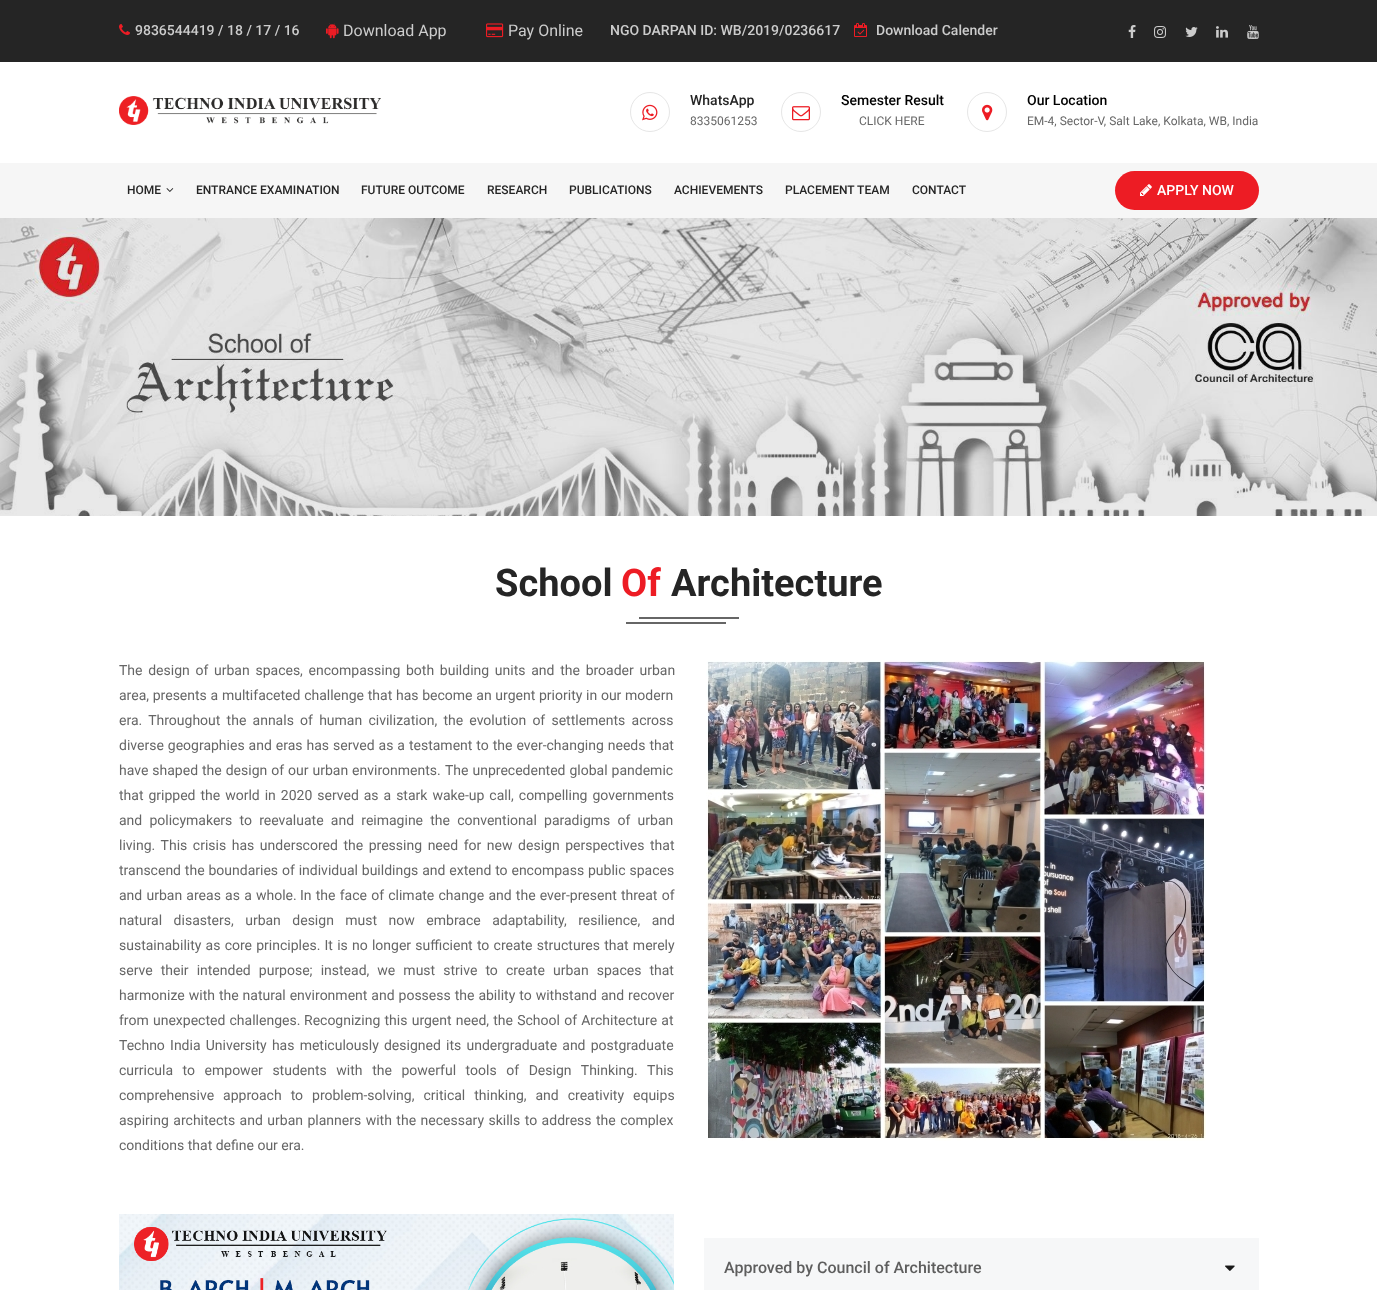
(async () => {
  const canvas = document.querySelector("canvas");
  canvas.width = 1377;
  canvas.height = 1290;
  const ctx = canvas.getContext("2d");
  ctx.miterLimit = 4;
  ctx.fontKerning = "normal";
  async function loadImage(src) {
    const img = new Image();
    img.src = src;
    await img.decode();
    return img;
  }

  ctx.fillStyle = "#ffffff";
  ctx.fillRect(0, 0, 1377, 1290);
  ctx.fillStyle = "#252525";
  ctx.fillRect(0, 0, 1377, 62);
  ctx.drawImage(await loadImage("img/1.png"), 119, 24, 11, 11);
  ctx.drawImage(await loadImage("img/2.png"), 326, 23, 13, 16);
  ctx.drawImage(await loadImage("img/3.png"), 486, 23, 18, 15);
  ctx.drawImage(await loadImage("img/4.png"), 854, 23, 13, 14);
  ctx.drawImage(await loadImage("img/5.png"), 1128, 25, 8, 13);
  ctx.drawImage(await loadImage("img/6.png"), 1154, 26, 12, 12);
  ctx.drawImage(await loadImage("img/7.png"), 1185, 27, 13, 10);
  ctx.drawImage(await loadImage("img/8.png"), 1216, 26, 12, 12);
  ctx.drawImage(await loadImage("img/9.png"), 1247, 25, 12, 14);
  ctx.drawImage(await loadImage("img/10.png"), 119, 96, 262, 29);
  ctx.beginPath();
  ctx.arc(650, 112, 19.5, 0, Math.PI * 2);
  ctx.strokeStyle = "#e6e6e6";
  ctx.stroke();
  ctx.drawImage(await loadImage("img/11.png"), 642, 104, 16, 17);
  ctx.beginPath();
  ctx.arc(801, 112, 19.5, 0, Math.PI * 2);
  ctx.stroke();
  ctx.drawImage(await loadImage("img/12.png"), 792, 106, 18, 15);
  ctx.beginPath();
  ctx.arc(987, 112, 19.5, 0, Math.PI * 2);
  ctx.stroke();
  ctx.drawImage(await loadImage("img/13.png"), 982, 104, 11, 17);
  ctx.fillStyle = "#f6f6f6";
  ctx.fillRect(0, 163, 1377, 55);
  ctx.drawImage(await loadImage("img/14.png"), 166, 188, 8, 4);
  ctx.fillStyle = "#ed1c24";
  ctx.beginPath();
  ctx.roundRect(1115, 171, 144, 39, 19.5);
  ctx.fill();
  ctx.drawImage(await loadImage("img/15.png"), 1140, 184, 12, 12);
  ctx.drawImage(await loadImage("img/16.png"), 0, 218, 1377, 298);
  ctx.fillStyle = "#666666";
  ctx.fillRect(639, 617, 100, 2);
  ctx.fillRect(626, 622, 100, 2);
  ctx.drawImage(await loadImage("img/17.png"), 706, 660, 500, 481);
  ctx.drawImage(await loadImage("img/18.png"), 119, 1214, 555, 76);
  ctx.fillStyle = "#f6f7f8";
  ctx.fillRect(704, 1238, 555, 52);
  ctx.drawImage(await loadImage("img/19.png"), 1225, 1265, 10, 6);
  ctx.font = "500 14px Roboto";
  ctx.fillStyle = "#cccccc";
  ctx.fillText("9836544419 / 18 / 17 / 16", 135, 35);
  ctx.font = "16px Roboto";
  ctx.fillText("Download App", 343, 36);
  ctx.fillText("Pay Online", 508, 36);
  ctx.font = "500 14px Roboto";
  ctx.fillText("NGO DARPAN ID: WB/2019/0236617", 610, 35);
  ctx.fillText("Download Calender", 876, 35);
  ctx.fillStyle = "#252525";
  ctx.fillText("WhatsApp", 690, 105);
  ctx.font = "12px Roboto";
  ctx.fillStyle = "#666666";
  ctx.fillText("8335061253", 690, 125);
  ctx.font = "500 14px Roboto";
  ctx.fillStyle = "#000000";
  ctx.fillText("Semester Result", 841, 105);
  ctx.font = "12px Roboto";
  ctx.fillStyle = "#666666";
  ctx.fillText("CLICK HERE", 859, 125);
  ctx.font = "500 14px Roboto";
  ctx.fillStyle = "#000000";
  ctx.fillText("Our Location", 1027, 105);
  ctx.font = "12px Roboto";
  ctx.fillStyle = "#666666";
  ctx.fillText("EM-4, Sector-V, Salt Lake, Kolkata, WB, India", 1027, 125);
  ctx.font = "500 12px Roboto";
  ctx.fillStyle = "#252525";
  for (const [text, x, y] of [
    ["HOME", 127, 194],
    ["ENTRANCE EXAMINATION", 196, 194],
    ["FUTURE OUTCOME", 361, 194],
    ["RESEARCH", 487, 194],
    ["PUBLICATIONS", 569, 194],
    ["ACHIEVEMENTS", 674, 194],
    ["PLACEMENT TEAM", 785, 194],
    ["CONTACT", 912, 194],
  ]) {
    ctx.fillText(text, x, y);
  }
  ctx.font = "500 14px Roboto";
  ctx.fillStyle = "#ffffff";
  ctx.fillText("APPLY NOW", 1157, 195);
  ctx.font = "bold 38px Roboto";
  ctx.fillStyle = "#252525";
  ctx.fillText("School", 495, 596);
  ctx.fillStyle = "#ed1c24";
  ctx.fillText("Of", 621, 596);
  ctx.fillStyle = "#252525";
  ctx.fillText("Architecture", 671, 596);
  ctx.wordSpacing = "2.25px";
  ctx.font = "14px Roboto";
  ctx.fillStyle = "#666666";
  ctx.fillText("The design of urban spaces, encompassing both building units and the broader urban", 119, 675);
  ctx.wordSpacing = "0.25px";
  ctx.fillText("area, presents a multifaceted challenge that has become an urgent priority in our modern", 119, 700);
  ctx.wordSpacing = "2.75px";
  ctx.fillText("era. Throughout the annals of human civilization, the evolution of settlements across", 119, 725);
  ctx.wordSpacing = "0.5px";
  for (const [text, x, y] of [
    ["diverse geographies and eras has served as a testament to the ever-changing needs that", 119, 750],
    ["have shaped the design of our urban environments.", 119, 775],
    ["The unprecedented global pandemic", 445, 775],
  ]) {
    ctx.fillText(text, x, y);
  }
  ctx.wordSpacing = "1.5px";
  ctx.fillText("that gripped the world in 2020 served as a stark wake-up call, compelling governments", 119, 800);
  ctx.wordSpacing = "3.75px";
  ctx.fillText("and policymakers to reevaluate and reimagine the conventional paradigms of urban", 119, 825);
  ctx.wordSpacing = "2.1px";
  ctx.fillText("living. This crisis has underscored the pressing need for new design perspectives that", 119, 850);
  ctx.wordSpacing = "0.4px";
  ctx.fillText("transcend the boundaries of individual buildings and extend to encompass public spaces", 119, 875);
  ctx.wordSpacing = "0.75px";
  ctx.fillText("and urban areas as a whole.", 119, 900);
  ctx.fillText("In the face of climate change and the ever-present threat of", 300, 900);
  ctx.wordSpacing = "8px";
  ctx.fillText("natural disasters, urban design must now embrace adaptability, resilience, and", 119, 925);
  ctx.wordSpacing = "0.75px";
  ctx.fillText("sustainability as core principles. It is no longer sufficient to create structures that merely", 119, 950);
  ctx.wordSpacing = "4.6px";
  ctx.fillText("serve their intended purpose; instead, we must strive to create urban spaces that", 119, 975);
  ctx.wordSpacing = "0.5px";
  ctx.fillText("harmonize with the natural environment and possess the ability to withstand and recover", 119, 1000);
  ctx.wordSpacing = "0.75px";
  ctx.fillText("from unexpected challenges.", 119, 1025);
  ctx.fillText("Recognizing this urgent need, the School of Architecture at", 304, 1025);
  ctx.wordSpacing = "1.75px";
  ctx.fillText("Techno India University has meticulously designed its undergraduate and postgraduate", 119, 1050);
  ctx.wordSpacing = "6.1px";
  ctx.fillText("curricula to empower students with the powerful tools of Design Thinking. This", 119, 1075);
  ctx.wordSpacing = "5.5px";
  ctx.fillText("comprehensive approach to problem-solving, critical thinking, and creativity equips", 119, 1100);
  ctx.wordSpacing = "1px";
  ctx.fillText("aspiring architects and urban planners with the necessary skills to address the complex", 119, 1125);
  ctx.wordSpacing = "0px";
  ctx.fillText("conditions that define our era.", 119, 1150);
  ctx.font = "500 16px Roboto";
  ctx.fillStyle = "#5e5e5e";
  ctx.fillText("Approved by Council of Architecture", 724, 1273);
})();
